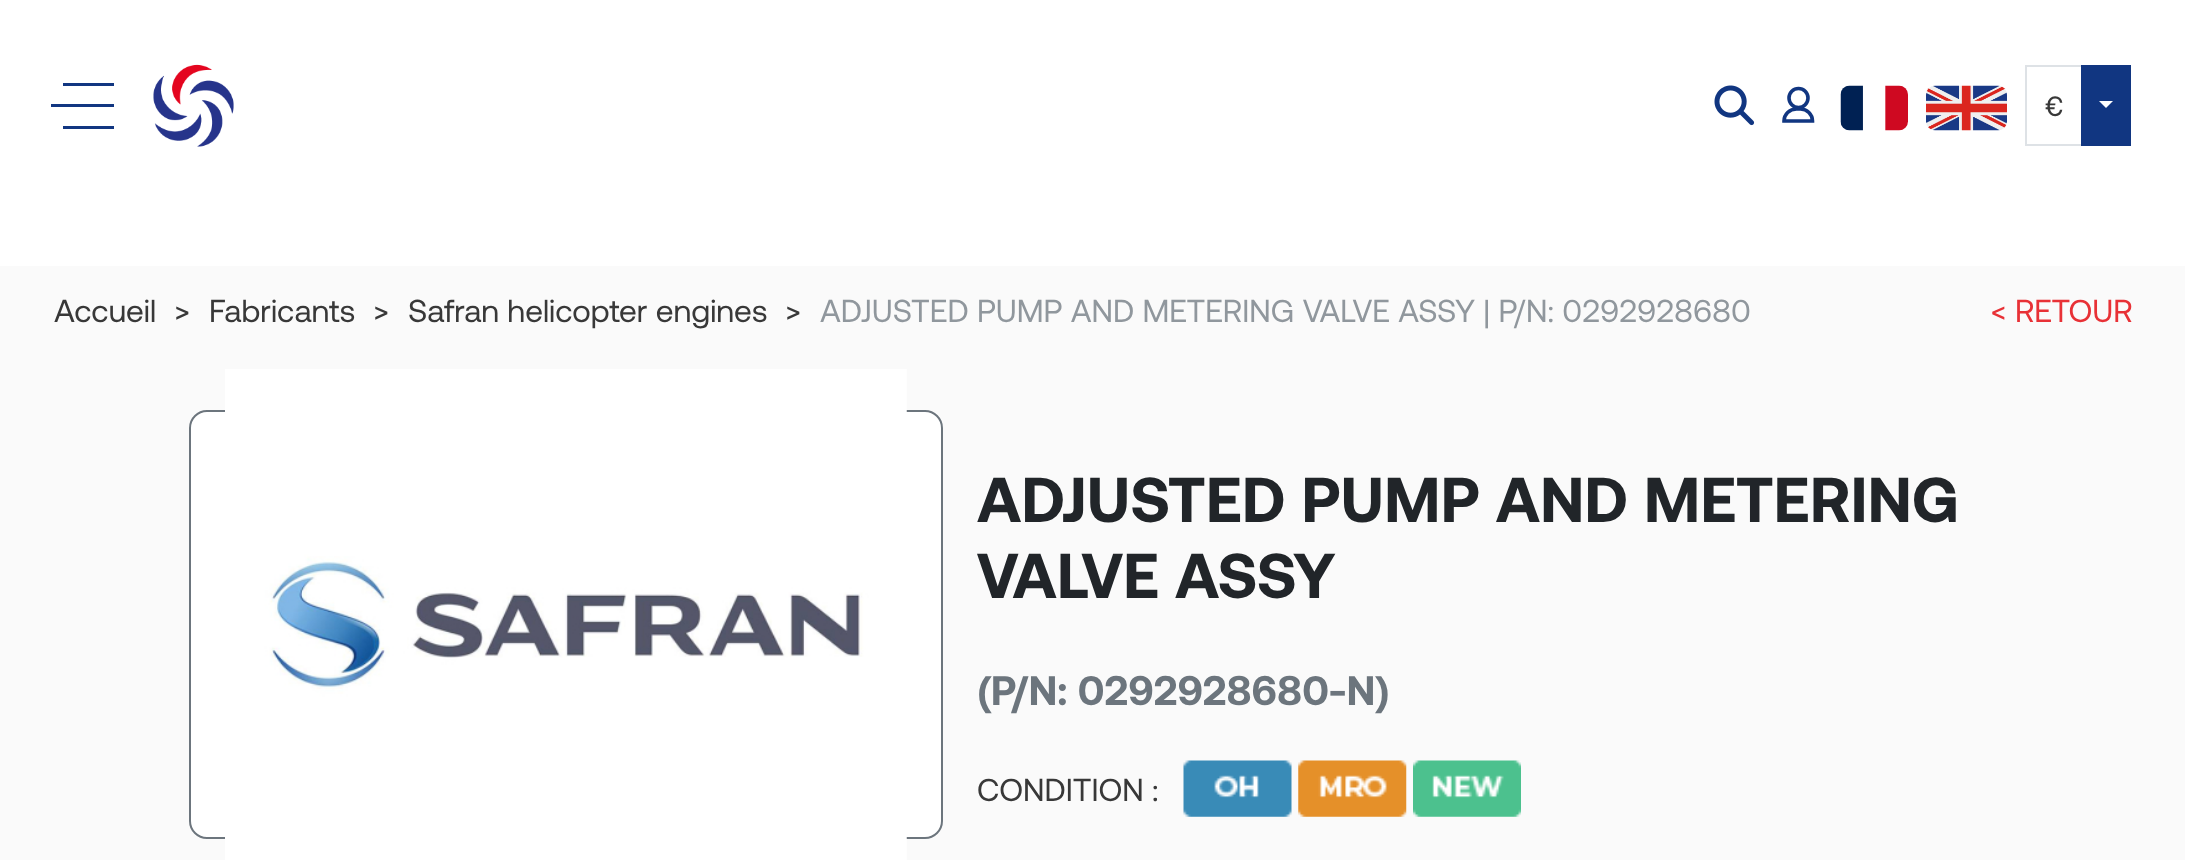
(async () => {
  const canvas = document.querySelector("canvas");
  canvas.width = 2185;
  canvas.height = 860;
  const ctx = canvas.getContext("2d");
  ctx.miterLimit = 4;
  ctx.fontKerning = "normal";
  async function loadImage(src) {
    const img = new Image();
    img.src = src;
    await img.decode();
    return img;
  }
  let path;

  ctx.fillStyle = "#ffffff";
  ctx.fillRect(0, 0, 2185, 860);
  ctx.fillStyle = "#113681";
  path = new Path2D("M63 83V86H114V83ZM51 104V107H114V104ZM63 126V129H114V126Z");
  ctx.fill(path);
  ctx.drawImage(await loadImage("img/1.png"), 153, 64, 81, 83);
  ctx.drawImage(await loadImage("img/2.png"), 1714, 85, 41, 41);
  ctx.beginPath();
  ctx.arc(1798.5, 98, 9.5, 0, Math.PI * 2);
  ctx.strokeStyle = "#113681";
  ctx.lineWidth = 3.6;
  ctx.stroke();
  path = new Path2D("M1812.5 121H1784C1784 114.5 1789.5 109 1796.5 109H1800.5C1807 109 1812.5 114.5 1812.5 121Z");
  ctx.stroke(path);
  ctx.drawImage(await loadImage("img/3.png"), 1840, 85, 68, 46);
  ctx.drawImage(await loadImage("img/4.png"), 1926, 85, 81, 46);
  ctx.strokeStyle = "#dee2e6";
  ctx.lineWidth = 2;
  ctx.strokeRect(2026, 66, 57, 79);
  ctx.fillRect(2081, 65, 50, 81);
  ctx.fillStyle = "#ffffff";
  path = new Path2D("M2099 101H2113L2106 108Z");
  ctx.fill(path);
  ctx.fillStyle = "#fafafa";
  ctx.fillRect(0, 266, 2185, 594);
  ctx.fillStyle = "#ffffff";
  ctx.beginPath();
  ctx.roundRect(190, 411, 752, 427, 17);
  ctx.fill();
  ctx.strokeStyle = "#6c757d";
  ctx.stroke();
  ctx.drawImage(await loadImage("img/5.png"), 225, 369, 682, 491);
  ctx.drawImage(await loadImage("img/6.png"), 1183, 760, 109, 57);
  ctx.drawImage(await loadImage("img/7.png"), 1298, 760, 109, 57);
  ctx.drawImage(await loadImage("img/8.png"), 1413, 760, 108, 57);
  ctx.font = "28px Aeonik";
  ctx.fillStyle = "#383838";
  ctx.fillText("€", 2045, 116);
  ctx.font = "31.7px Aeonik";
  for (const [text, x, y] of [
    ["Accueil", 54, 322],
    [">", 174, 322],
    ["Fabricants", 209, 322],
    [">", 373, 322],
    ["Safran helicopter engines", 408, 322],
    [">", 785, 322],
  ]) {
    ctx.fillText(text, x, y);
  }
  ctx.fillStyle = "#90979d";
  ctx.fillText("ADJUSTED PUMP AND METERING VALVE ASSY | P/N: 0292928680", 820, 322);
  ctx.fillStyle = "#e83136";
  ctx.fillText("< RETOUR", 1990, 322);
  ctx.font = "bold 63.4px Aeonik";
  ctx.fillStyle = "#212529";
  ctx.fillText("ADJUSTED PUMP AND METERING", 977, 522);
  ctx.fillText("VALVE ASSY", 977, 598);
  ctx.font = "bold 41.25px Aeonik";
  ctx.fillStyle = "#6c757d";
  ctx.fillText("(P/N: 0292928680-N)", 977, 705);
  ctx.font = "31.7px Aeonik";
  ctx.fillStyle = "#383838";
  ctx.fillText("CONDITION :", 977, 801);
})();
